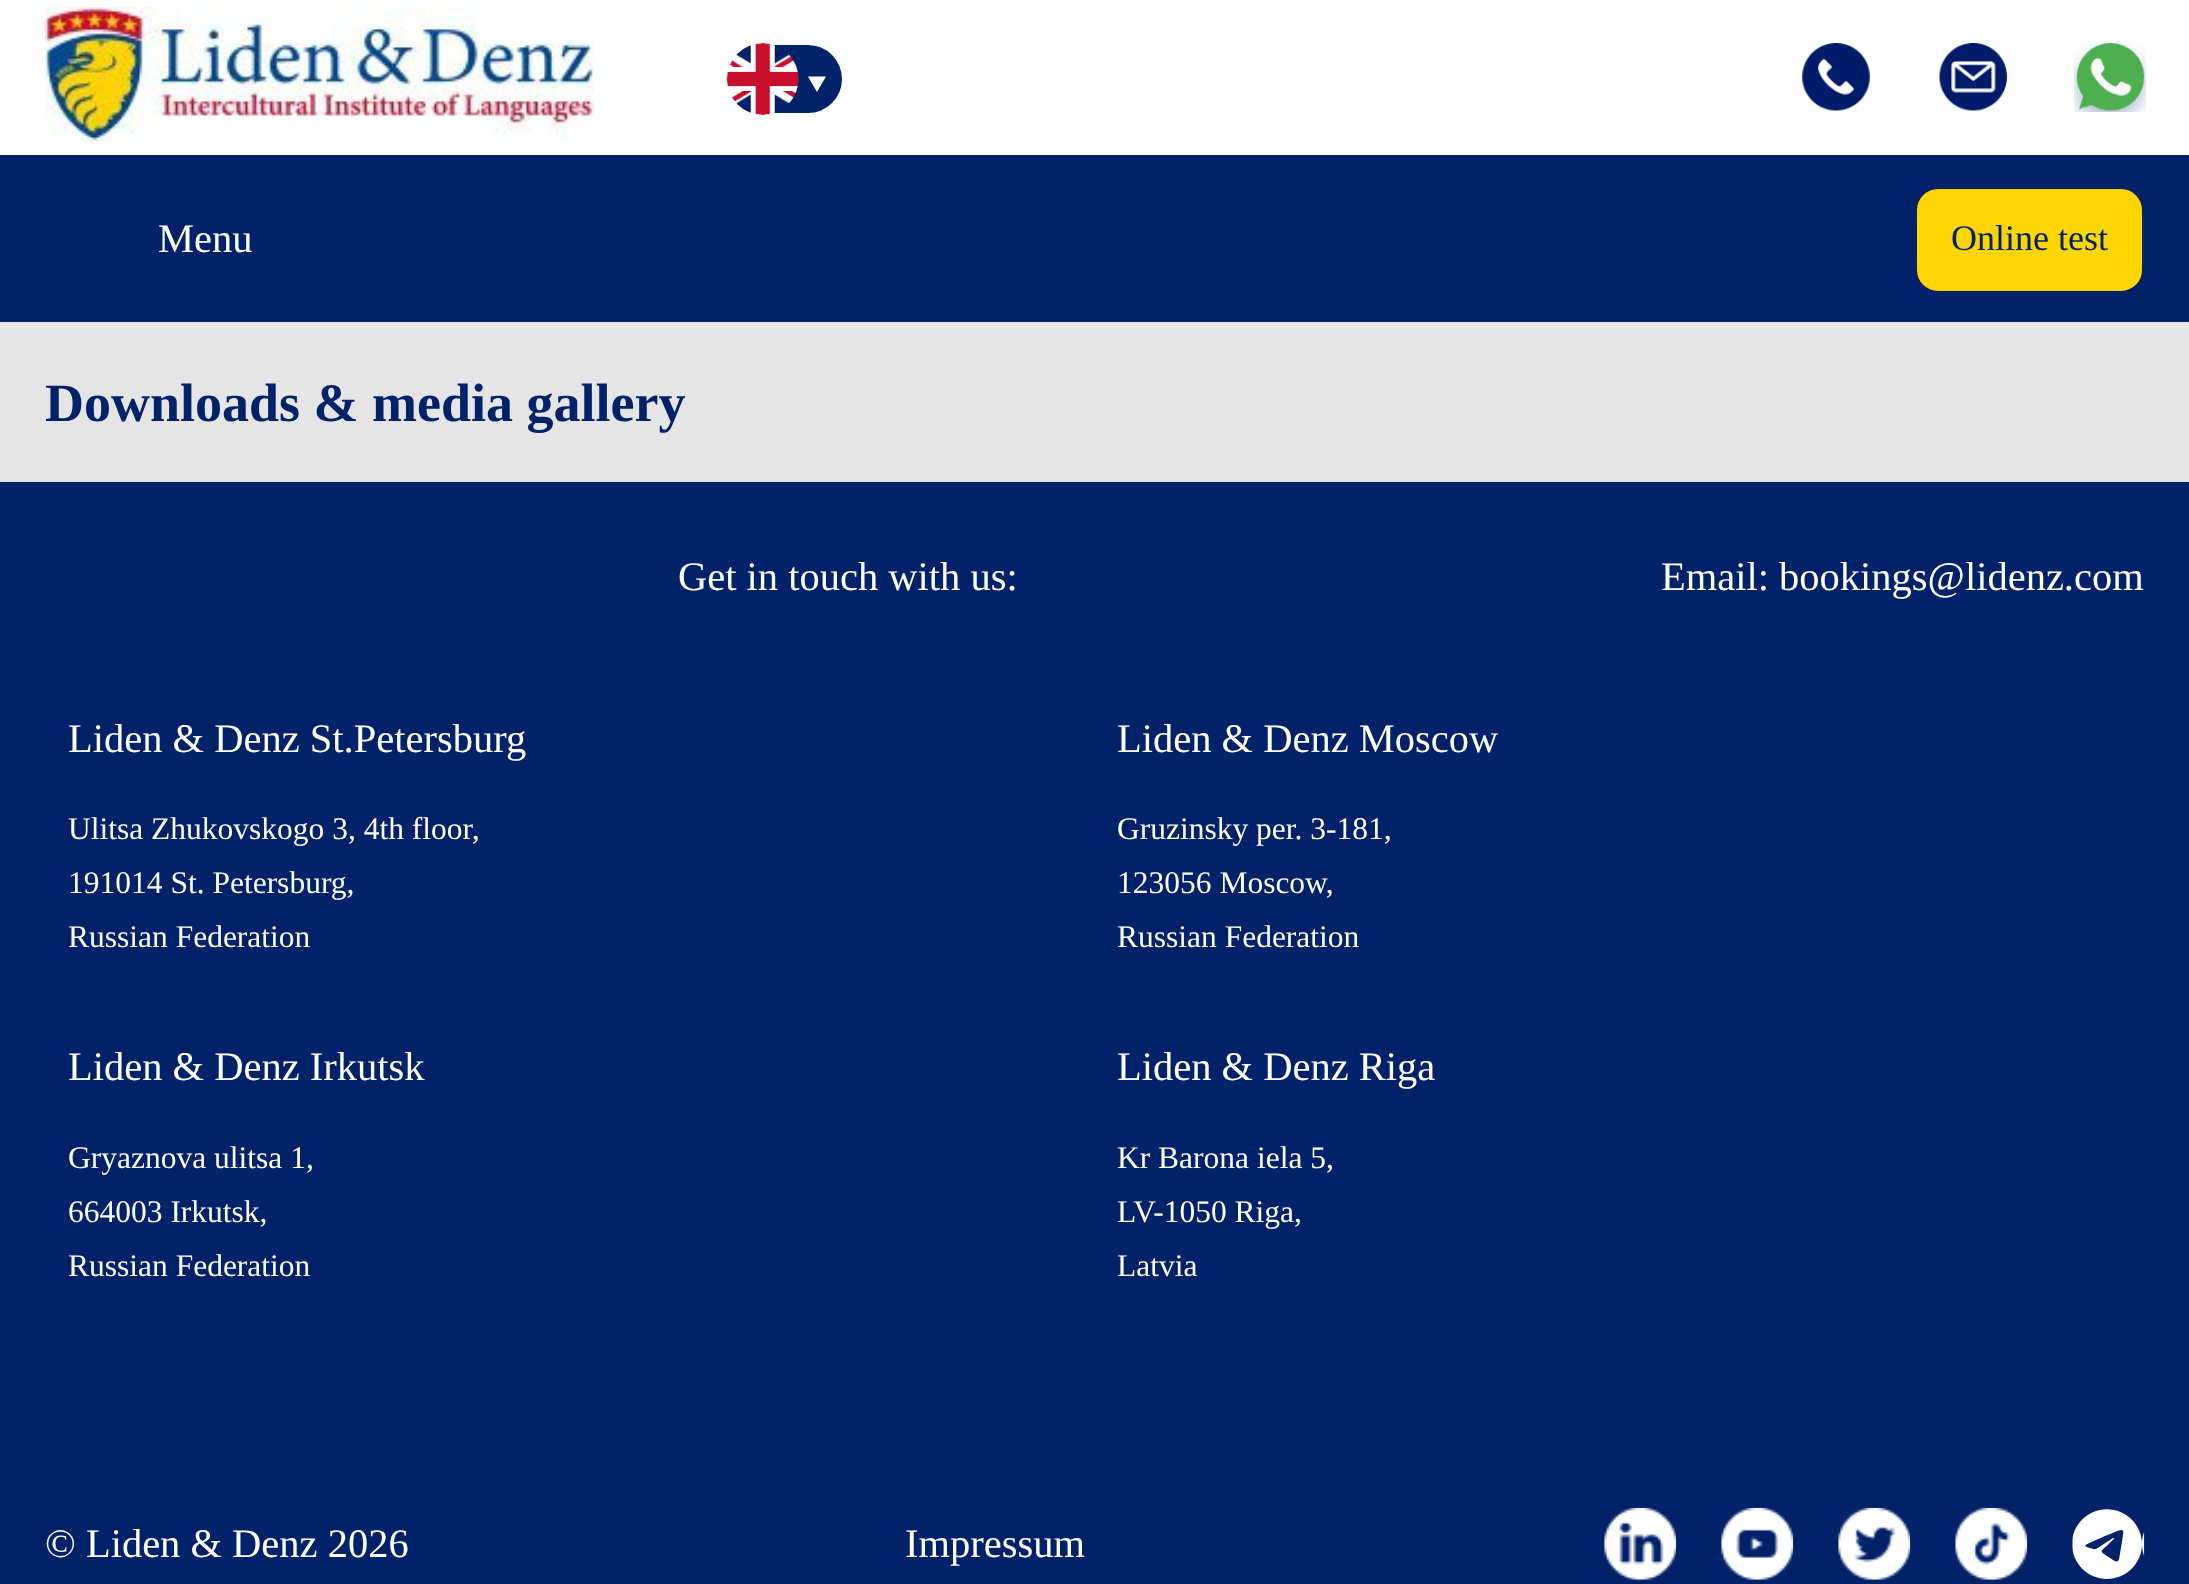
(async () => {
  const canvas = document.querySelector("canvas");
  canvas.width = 2189;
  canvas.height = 1584;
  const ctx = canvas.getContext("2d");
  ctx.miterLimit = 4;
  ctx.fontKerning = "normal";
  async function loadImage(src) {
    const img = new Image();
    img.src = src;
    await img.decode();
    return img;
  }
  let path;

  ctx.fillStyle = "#e5e5e5";
  ctx.fillRect(0, 0, 2189, 1584);
  ctx.fillStyle = "#ffffff";
  ctx.fillRect(0, 0, 2189, 155);
  ctx.drawImage(await loadImage("img/1.png"), 45, 7, 549, 135);
  ctx.fillStyle = "#012169";
  ctx.beginPath();
  ctx.roundRect(729, 45, 113, 68, 34);
  ctx.fill();
  ctx.drawImage(await loadImage("img/2.png"), 726, 43, 73, 72);
  ctx.fillStyle = "#ffffff";
  path = new Path2D("M808 76.5H826L817 92Z");
  ctx.fill(path);
  ctx.drawImage(await loadImage("img/3.png"), 1802, 43, 68, 68);
  ctx.drawImage(await loadImage("img/4.png"), 1939, 43, 68, 68);
  ctx.drawImage(await loadImage("img/5.png"), 2074, 41, 72, 71);
  ctx.fillStyle = "#012169";
  ctx.fillRect(0, 155, 2189, 167);
  ctx.fillStyle = "#fdd501";
  ctx.beginPath();
  ctx.roundRect(1916, 188, 227, 104, 22);
  ctx.fill();
  ctx.strokeStyle = "#012169";
  ctx.lineWidth = 2;
  ctx.stroke();
  ctx.fillStyle = "#012169";
  ctx.fillRect(0, 482, 2189, 1102);
  ctx.drawImage(await loadImage("img/6.png"), 1604, 1507, 73, 73);
  ctx.drawImage(await loadImage("img/7.png"), 1721, 1507, 73, 73);
  ctx.drawImage(await loadImage("img/8.png"), 1838, 1507, 73, 73);
  ctx.drawImage(await loadImage("img/9.png"), 1955, 1507, 73, 73);
  ctx.drawImage(await loadImage("img/10.png"), 2072, 1509, 73, 70);
  ctx.font = "40.5px Liberation Serif";
  ctx.fillStyle = "#ffffff";
  ctx.fillText("Menu", 158, 252);
  ctx.font = "36px Liberation Serif";
  ctx.fillStyle = "#012169";
  ctx.fillText("Online test", 1951, 250);
  ctx.font = "bold 54px Liberation Serif";
  ctx.fillText("Downloads & media gallery", 45, 421);
  ctx.font = "40.5px Liberation Serif";
  ctx.fillStyle = "#ffffff";
  for (const [text, x, y] of [
    ["Get in touch with us:", 678, 590],
    ["Email: bookings@lidenz.com", 1661, 590],
    ["Liden & Denz St.Petersburg", 68, 752],
  ]) {
    ctx.fillText(text, x, y);
  }
  ctx.font = "31.5px Liberation Serif";
  for (const [text, x, y] of [
    ["Ulitsa Zhukovskogo 3, 4th floor,", 68, 839],
    ["191014 St. Petersburg,", 68, 893],
    ["Russian Federation", 68, 947],
  ]) {
    ctx.fillText(text, x, y);
  }
  ctx.font = "40.5px Liberation Serif";
  ctx.fillText("Liden & Denz Moscow", 1117, 752);
  ctx.font = "31.5px Liberation Serif";
  for (const [text, x, y] of [
    ["Gruzinsky per. 3-181,", 1117, 839],
    ["123056 Moscow,", 1117, 893],
    ["Russian Federation", 1117, 947],
  ]) {
    ctx.fillText(text, x, y);
  }
  ctx.font = "40.5px Liberation Serif";
  ctx.fillText("Liden & Denz Irkutsk", 68, 1080);
  ctx.font = "31.5px Liberation Serif";
  for (const [text, x, y] of [
    ["Gryaznova ulitsa 1,", 68, 1168],
    ["664003 Irkutsk,", 68, 1222],
    ["Russian Federation", 68, 1276],
  ]) {
    ctx.fillText(text, x, y);
  }
  ctx.font = "40.5px Liberation Serif";
  ctx.fillText("Liden & Denz Riga", 1117, 1080);
  ctx.font = "31.5px Liberation Serif";
  for (const [text, x, y] of [
    ["Kr Barona iela 5,", 1117, 1168],
    ["LV-1050 Riga,", 1117, 1222],
    ["Latvia", 1117, 1276],
  ]) {
    ctx.fillText(text, x, y);
  }
  ctx.font = "40.5px Liberation Serif";
  ctx.fillText("© Liden & Denz 2026", 45, 1557);
  ctx.fillText("Impressum", 905, 1557);
})();
